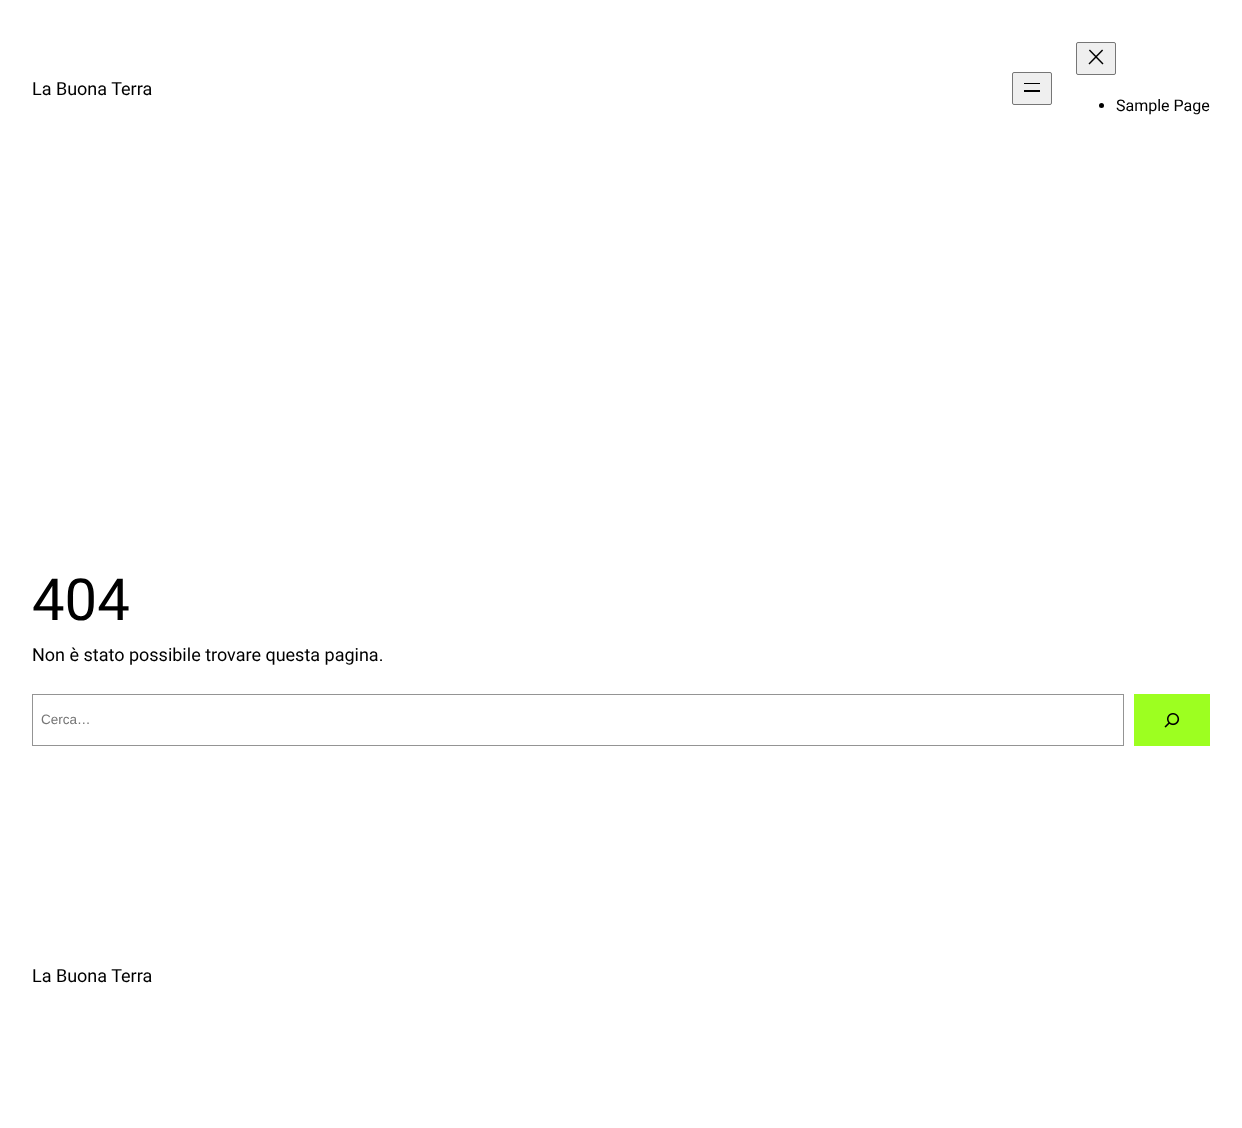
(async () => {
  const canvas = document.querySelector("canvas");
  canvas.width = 1242;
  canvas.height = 1128;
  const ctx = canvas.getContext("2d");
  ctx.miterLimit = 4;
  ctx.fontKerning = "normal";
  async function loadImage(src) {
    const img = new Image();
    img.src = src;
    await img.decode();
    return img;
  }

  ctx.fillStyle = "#ffffff";
  ctx.fillRect(0, 0, 1242, 1128);
  ctx.fillStyle = "#efefef";
  ctx.beginPath();
  ctx.roundRect(1012.5, 72.5, 39, 32, 1.5);
  ctx.fill();
  ctx.strokeStyle = "#767676";
  ctx.stroke();
  ctx.fillStyle = "#000000";
  ctx.fillRect(1024, 83, 16, 1);
  ctx.fillRect(1024, 90, 16, 2);
  ctx.fillStyle = "#efefef";
  ctx.beginPath();
  ctx.roundRect(1076.5, 42.5, 39, 32, 1.5);
  ctx.fill();
  ctx.stroke();
  ctx.drawImage(await loadImage("img/1.png"), 1088, 49, 16, 16);
  ctx.fillStyle = "#000000";
  ctx.beginPath();
  ctx.arc(1101.5, 105.5, 2.5, 0, Math.PI * 2);
  ctx.fill();
  ctx.strokeStyle = "#949494";
  ctx.strokeRect(32.5, 694.5, 1091, 51);
  ctx.fillStyle = "#9dff20";
  ctx.fillRect(1134, 694, 76, 52);
  ctx.drawImage(await loadImage("img/2.png"), 1164, 713, 16, 15);
  ctx.font = "18px Roboto";
  ctx.fillStyle = "#000000";
  ctx.fillText("La Buona Terra", 32, 95);
  ctx.font = "16px Roboto";
  ctx.fillText("Sample Page", 1116, 111);
  ctx.font = "58px Roboto";
  ctx.fillText("404", 32, 620);
  ctx.font = "18px Roboto";
  ctx.fillText("Non è stato possibile trovare questa pagina.", 32, 661);
  ctx.font = "13.5px Liberation Sans";
  ctx.fillStyle = "#757575";
  ctx.fillText("Cerca…", 41, 724);
  ctx.font = "18px Roboto";
  ctx.fillStyle = "#000000";
  ctx.fillText("La Buona Terra", 32, 982);
})();
